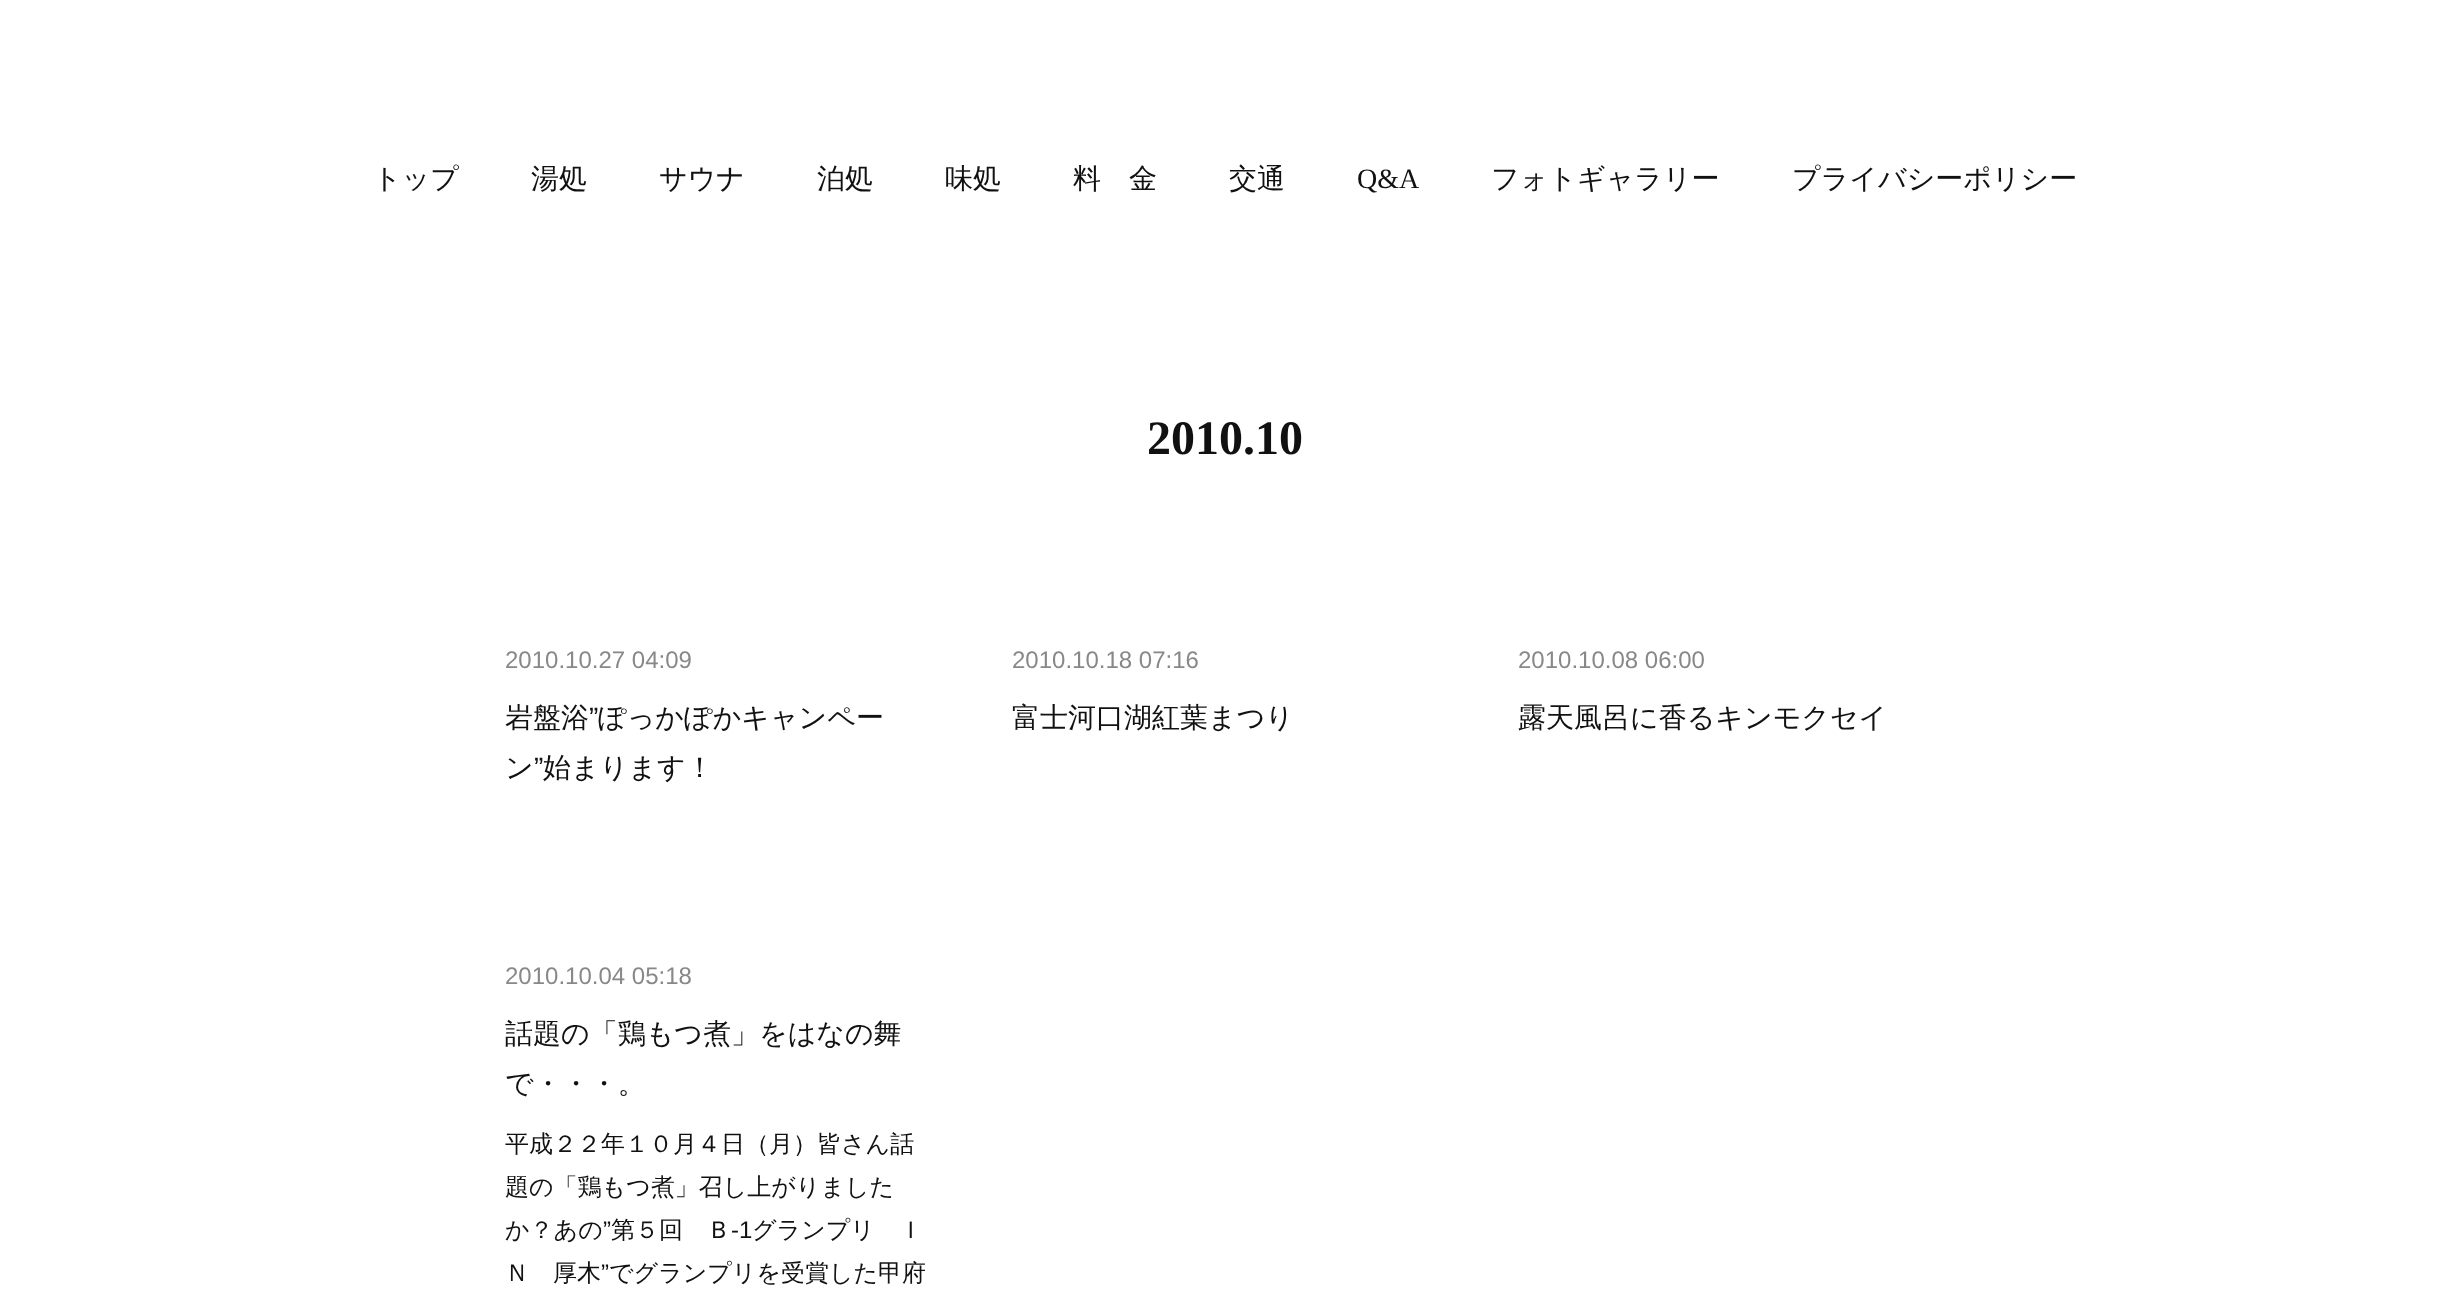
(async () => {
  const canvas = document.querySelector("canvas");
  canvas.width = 2450;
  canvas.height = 1315;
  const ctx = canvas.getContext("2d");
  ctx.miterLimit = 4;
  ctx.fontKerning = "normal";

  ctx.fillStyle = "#ffffff";
  ctx.fillRect(0, 0, 2450, 1315);
  ctx.font = "500 28px WenQuanYi Zen Hei";
  ctx.fillStyle = "#111111";
  for (const [text, x, y] of [
    ["トップ", 373, 188],
    ["湯処", 531, 188],
    ["サウナ", 659, 188],
    ["泊処", 817, 188],
    ["味処", 945, 188],
    ["料　金", 1073, 188],
    ["交通", 1229, 188],
  ]) {
    ctx.fillText(text, x, y);
  }
  ctx.font = "28px Liberation Serif";
  ctx.fillText("Q&A", 1357, 188);
  ctx.font = "500 28px WenQuanYi Zen Hei";
  ctx.fillText("フォトギャラリー", 1491, 188);
  ctx.fillText("プライバシーポリシー", 1792, 188);
  ctx.font = "bold 48px Liberation Serif";
  ctx.fillText("2010.10", 1147, 454);
  ctx.font = "24px Liberation Sans";
  ctx.fillStyle = "#888888";
  ctx.fillText("2010.10.27 04:09", 505, 668);
  ctx.font = "500 28px WenQuanYi Zen Hei";
  ctx.fillStyle = "#111111";
  ctx.fillText("岩盤浴", 505, 727);
  ctx.font = "28px Liberation Sans";
  ctx.fillText("”", 589, 727);
  ctx.font = "500 28px WenQuanYi Zen Hei";
  ctx.fillText("ぽっかぽかキャンペー", 598, 727);
  ctx.fillText("ン", 505, 777);
  ctx.font = "28px Liberation Sans";
  ctx.fillText("”", 534, 777);
  ctx.font = "500 28px WenQuanYi Zen Hei";
  ctx.fillText("始まります！", 543, 777);
  ctx.font = "24px Liberation Sans";
  ctx.fillStyle = "#888888";
  ctx.fillText("2010.10.18 07:16", 1012, 668);
  ctx.font = "500 28px WenQuanYi Zen Hei";
  ctx.fillStyle = "#111111";
  ctx.fillText("富士河口湖紅葉まつり", 1012, 727);
  ctx.font = "24px Liberation Sans";
  ctx.fillStyle = "#888888";
  ctx.fillText("2010.10.08 06:00", 1518, 668);
  ctx.font = "500 28px WenQuanYi Zen Hei";
  ctx.fillStyle = "#111111";
  ctx.fillText("露天風呂に香るキンモクセイ", 1518, 727);
  ctx.font = "24px Liberation Sans";
  ctx.fillStyle = "#888888";
  ctx.fillText("2010.10.04 05:18", 505, 984);
  ctx.font = "500 28px WenQuanYi Zen Hei";
  ctx.fillStyle = "#111111";
  ctx.fillText("話題の「鶏もつ煮」をはなの舞", 505, 1043);
  ctx.fillText("で・・・。", 505, 1093);
  ctx.font = "500 24px WenQuanYi Zen Hei";
  for (const [text, x, y] of [
    ["平成２２年１０月４日（月）皆さん話", 505, 1152],
    ["題の「鶏もつ煮」召し上がりました", 505, 1195],
    ["か？あの", 505, 1238],
  ]) {
    ctx.fillText(text, x, y);
  }
  ctx.font = "24px Liberation Sans";
  ctx.fillText("”", 603, 1238);
  ctx.font = "500 24px WenQuanYi Zen Hei";
  ctx.fillText("第５回　Ｂ", 611, 1238);
  ctx.font = "24px Liberation Sans";
  ctx.fillText("-1", 731, 1238);
  ctx.font = "500 24px WenQuanYi Zen Hei";
  ctx.fillText("グランプリ　Ｉ", 752, 1238);
  ctx.fillText("Ｎ　厚木", 505, 1281);
  ctx.font = "24px Liberation Sans";
  ctx.fillText("”", 601, 1281);
  ctx.font = "500 24px WenQuanYi Zen Hei";
  ctx.fillText("でグランプリを受賞した甲府", 609, 1281);
})();
